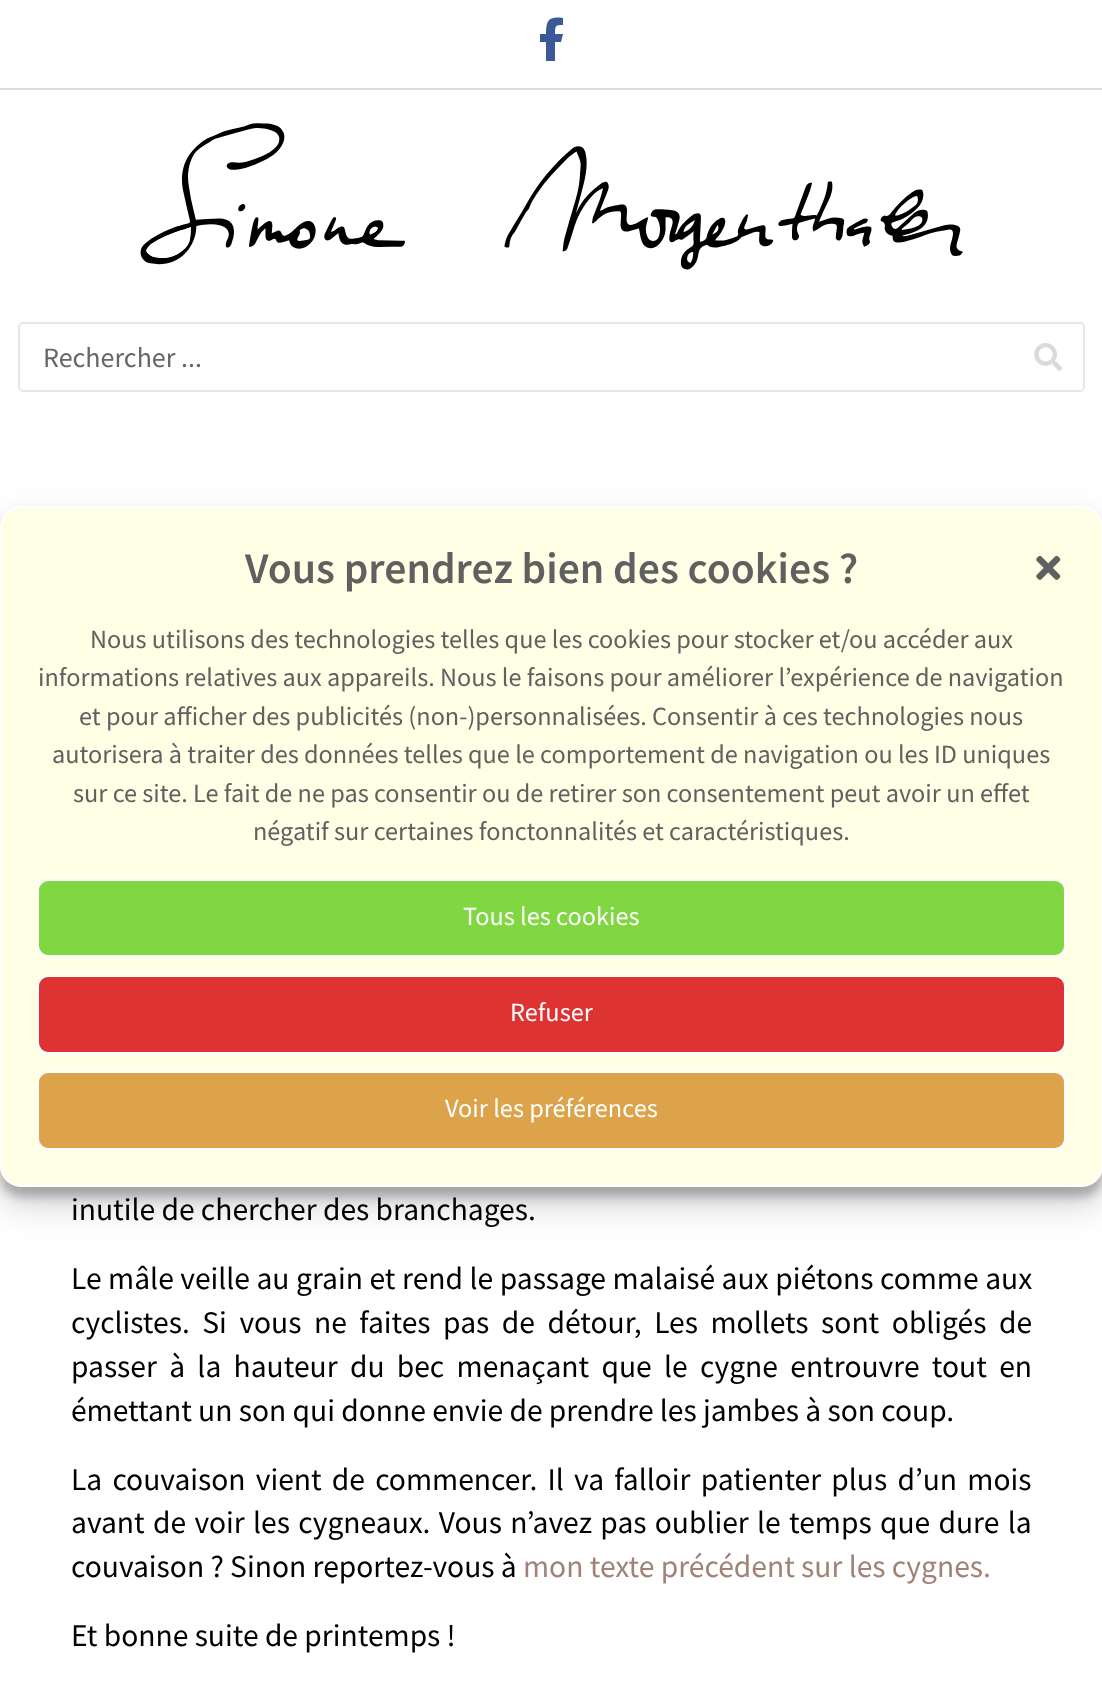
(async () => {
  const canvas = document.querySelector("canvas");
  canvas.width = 1102;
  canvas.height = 1688;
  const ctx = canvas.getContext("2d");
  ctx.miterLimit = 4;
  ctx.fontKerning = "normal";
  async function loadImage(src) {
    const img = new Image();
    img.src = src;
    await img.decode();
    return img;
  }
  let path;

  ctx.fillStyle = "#ffffff";
  ctx.fillRect(0, 0, 1102, 1688);
  ctx.fillStyle = "#dbdbdb";
  ctx.fillRect(0, 88, 1102, 2);
  ctx.fillStyle = "#3b5998";
  path = new Path2D("M561 42H555V61H546V42H540V34H546C546 20 549 16 563 18V25C555 25 555 26 555 34H563Z");
  ctx.fill(path);
  ctx.drawImage(await loadImage("img/1.png"), 140, 123, 823, 147);
  ctx.beginPath();
  ctx.roundRect(19, 323, 1065, 68, 4);
  ctx.strokeStyle = "#e7e7e7";
  ctx.lineWidth = 2;
  ctx.stroke();
  ctx.drawImage(await loadImage("img/2.png"), 1034, 343, 29, 28);
  ctx.fillStyle = "rgba(0, 0, 0, 0.23)";
  ctx.filter = "blur(5px)";
  ctx.beginPath();
  ctx.roundRect(0, 516, 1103, 681, 21);
  ctx.fill();
  ctx.filter = "none";
  ctx.fillStyle = "rgba(0, 0, 0, 0.19)";
  ctx.filter = "blur(17.5px)";
  ctx.beginPath();
  ctx.roundRect(0, 523, 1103, 681, 21);
  ctx.fill();
  ctx.filter = "none";
  ctx.fillStyle = "#ffffe5";
  ctx.beginPath();
  ctx.roundRect(1, 507, 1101, 679, 20);
  ctx.fill();
  ctx.strokeStyle = "#ffffff";
  ctx.stroke();
  ctx.drawImage(await loadImage("img/3.png"), 1036, 555, 25, 25);
  ctx.fillStyle = "#81d742";
  ctx.beginPath();
  ctx.roundRect(38, 880, 1027, 76, 10);
  ctx.fill();
  ctx.stroke();
  ctx.fillStyle = "#dd3333";
  ctx.beginPath();
  ctx.roundRect(38, 976, 1027, 77, 10);
  ctx.fill();
  ctx.stroke();
  ctx.fillStyle = "#dda34b";
  ctx.beginPath();
  ctx.roundRect(38, 1072, 1027, 77, 10);
  ctx.fill();
  ctx.stroke();
  ctx.font = "28px Source Sans Pro";
  ctx.fillStyle = "#666666";
  ctx.fillText("Rechercher ...", 43, 367);
  ctx.font = "600 43.75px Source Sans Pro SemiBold";
  ctx.fillStyle = "#606060";
  ctx.fillText("Vous prendrez bien des cookies ?", 245, 583);
  ctx.font = "26.25px Source Sans Pro";
  for (const [text, x, y] of [
    ["Nous utilisons des technologies telles que les cookies pour stocker et/ou accéder aux", 90, 648],
    ["informations relatives aux appareils. Nous le faisons pour améliorer l’expérience de navigation", 38, 686],
    ["et pour afficher des publicités (non-)personnalisées. Consentir à ces technologies nous", 79, 725],
    ["autorisera à traiter des données telles que le comportement de navigation ou les ID uniques", 52, 763],
    ["sur ce site. Le fait de ne pas consentir ou de retirer son consentement peut avoir un effet", 73, 802],
    ["négatif sur certaines fonctonnalités et caractéristiques.", 253, 840],
  ]) {
    ctx.fillText(text, x, y);
  }
  ctx.fillStyle = "#ffffff";
  for (const [text, x, y] of [
    ["Tous les cookies", 463, 925],
    ["Refuser", 510, 1021],
    ["Voir les préférences", 445, 1117],
  ]) {
    ctx.fillText(text, x, y);
  }
  ctx.font = "31.5px Source Sans Pro";
  ctx.fillStyle = "#000000";
  ctx.fillText("inutile de chercher des branchages.", 71, 1220);
  ctx.wordSpacing = "0.25px";
  ctx.fillText("Le mâle veille au grain et rend le passage malaisé aux piétons comme aux", 71, 1289);
  ctx.wordSpacing = "6.25px";
  ctx.fillText("cyclistes. Si vous ne faites pas de détour, Les mollets sont obligés de", 71, 1333);
  ctx.wordSpacing = "6px";
  ctx.fillText("passer à la hauteur du bec menaçant que le cygne entrouvre tout en", 71, 1377);
  ctx.wordSpacing = "0px";
  ctx.fillText("émettant un son qui donne envie de prendre les jambes à son coup.", 71, 1421);
  ctx.wordSpacing = "3.9px";
  ctx.fillText("La couvaison vient de commencer. Il va falloir patienter plus d’un mois", 71, 1490);
  ctx.wordSpacing = "2px";
  ctx.fillText("avant de voir les cygneaux. Vous n’avez pas oublier le temps que dure la", 71, 1533);
  ctx.wordSpacing = "0px";
  ctx.fillText("couvaison ? Sinon reportez-vous à", 71, 1577);
  ctx.fillStyle = "#a18276";
  ctx.fillText("mon texte précédent sur les cygnes.", 523, 1577);
  ctx.fillStyle = "#000000";
  ctx.fillText("Et bonne suite de printemps !", 71, 1646);
})();
